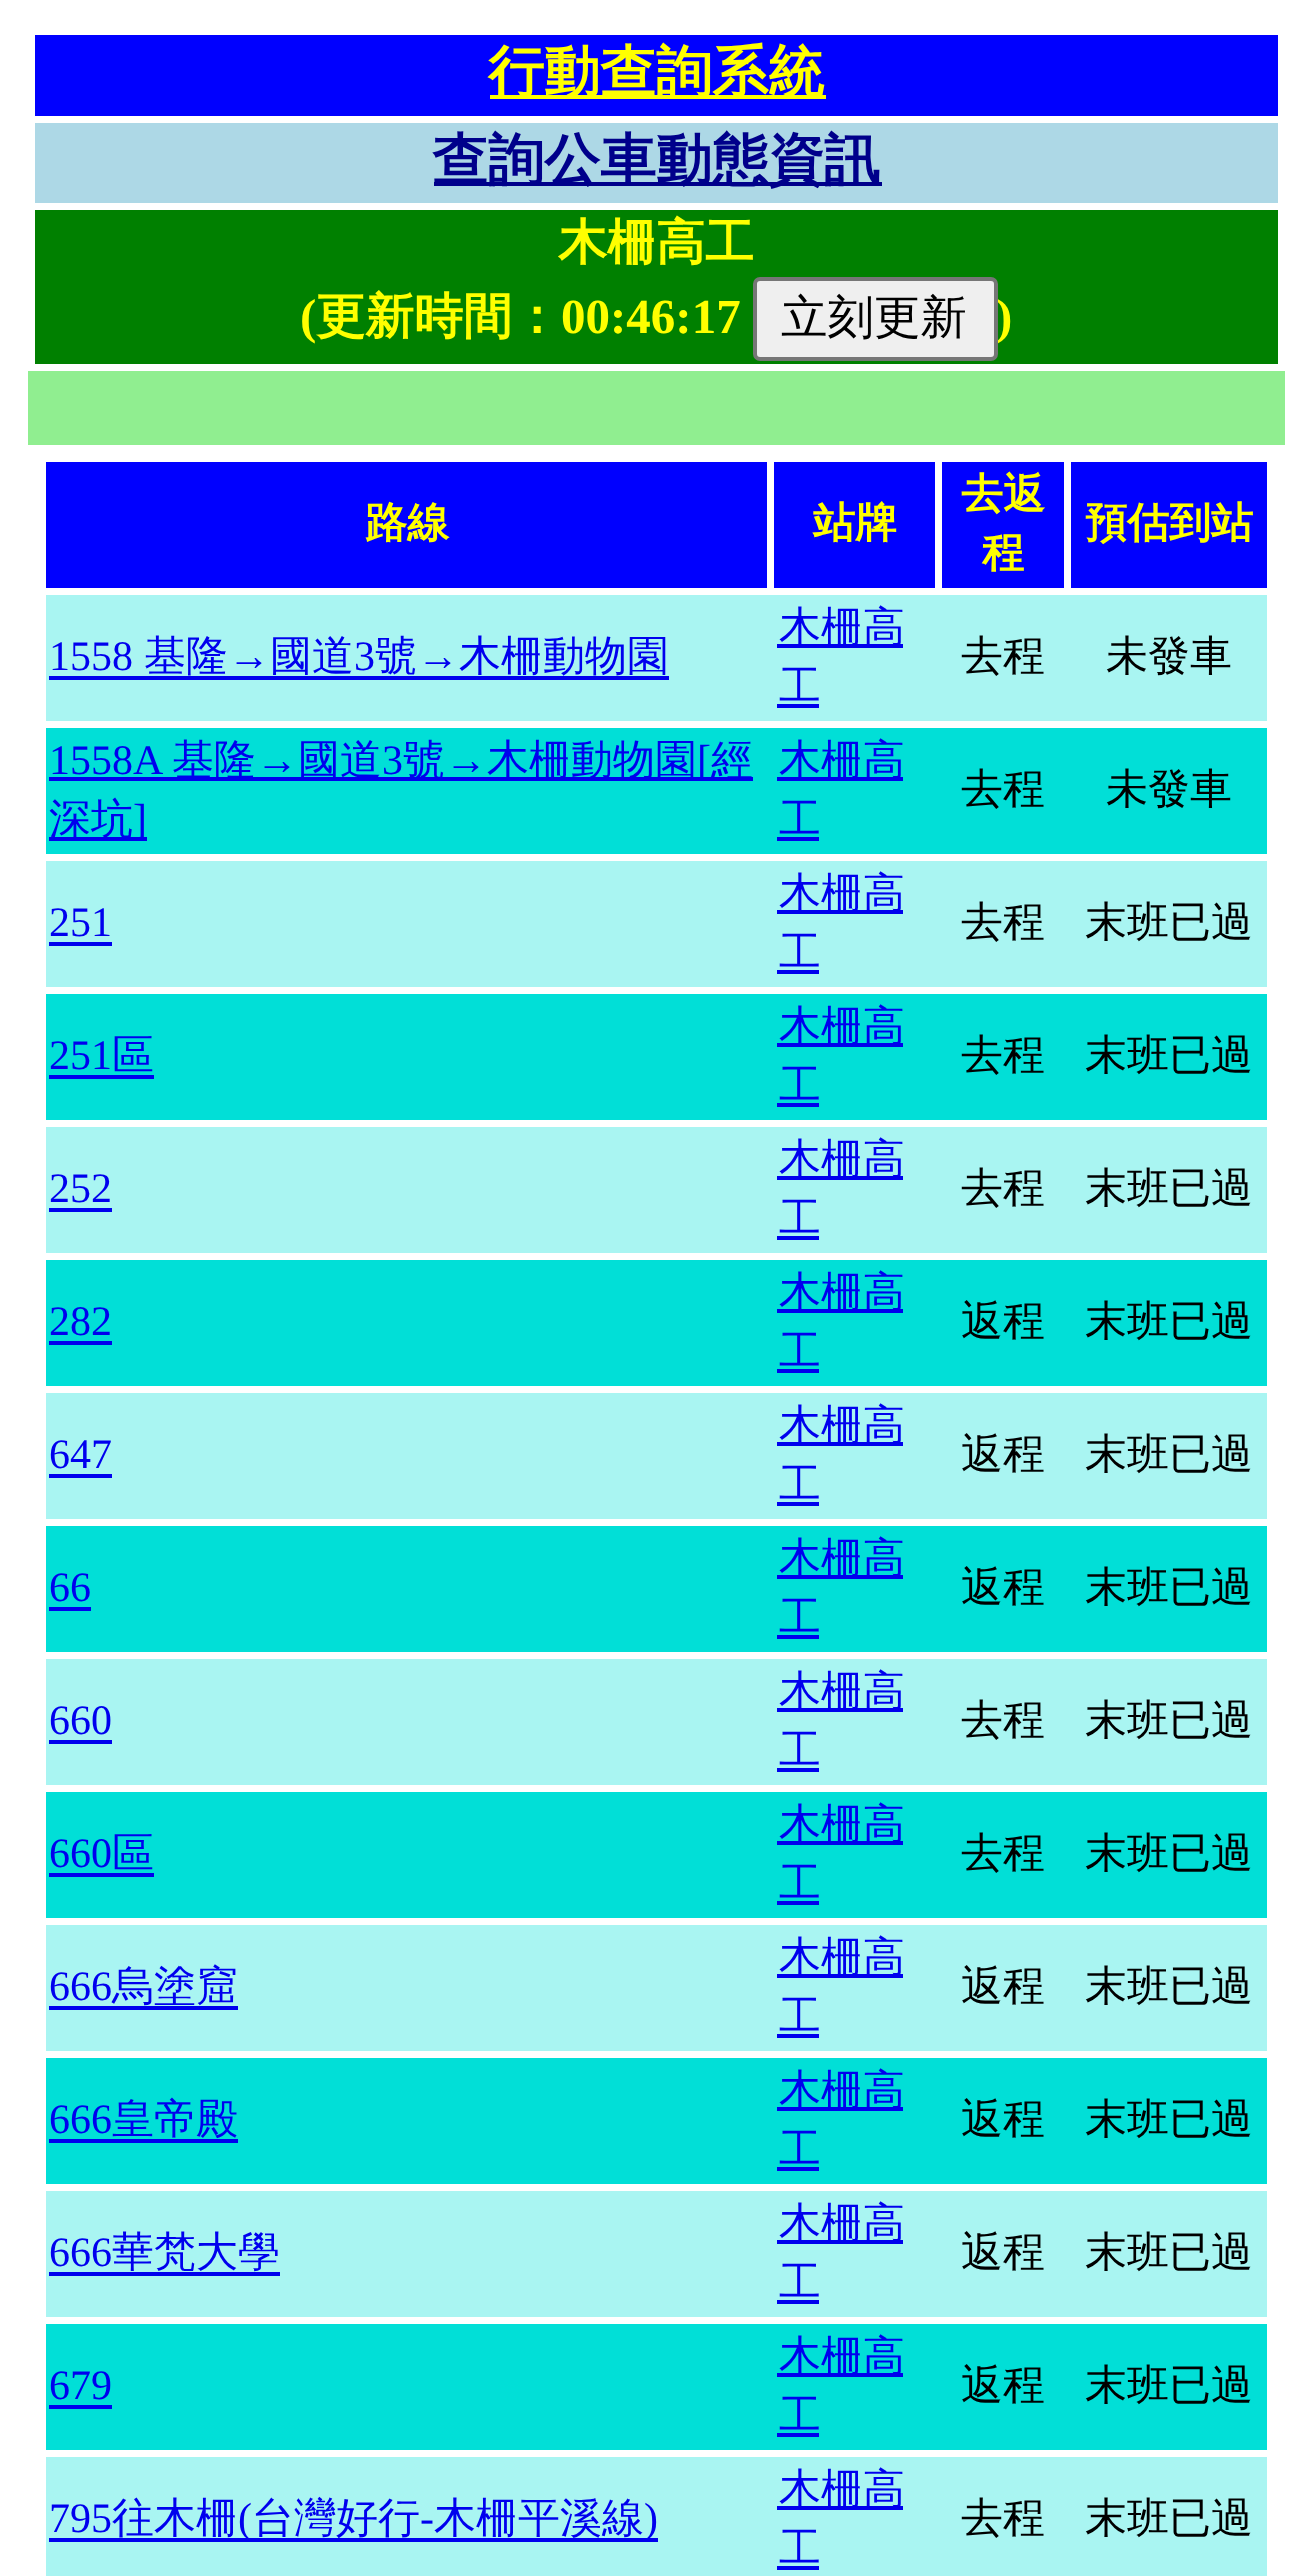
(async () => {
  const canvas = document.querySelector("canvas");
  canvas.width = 1311;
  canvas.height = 2576;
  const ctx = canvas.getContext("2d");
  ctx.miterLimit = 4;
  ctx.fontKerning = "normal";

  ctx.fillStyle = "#ffffff";
  ctx.fillRect(0, 0, 1311, 2576);
  for (const [x, y, w, h, color] of [
    [35, 35, 1243, 81, "#0000ff"],
    [490, 95, 336, 4, "#ffff00"],
    [35, 123, 1243, 80, "#add8e6"],
    [434, 182, 448, 4, "#00008b"],
    [35, 210, 1243, 154, "#008000"],
    [28, 371, 1257, 74, "#90ee90"],
    [46, 462, 721, 126, "#0000ff"],
    [774, 462, 161, 126, "#0000ff"],
    [942, 462, 122, 126, "#0000ff"],
    [1071, 462, 196, 126, "#0000ff"],
    [46, 595, 1221, 126, "#a9f5f2"],
    [49, 676, 620, 4, "#0000ee"],
    [777, 644, 126, 4, "#0000ee"],
    [777, 704, 42, 4, "#0000ee"],
    [46, 728, 1221, 126, "#01dfd7"],
    [49, 777, 704, 4, "#0000ee"],
    [49, 837, 98, 4, "#0000ee"],
    [777, 777, 126, 4, "#0000ee"],
    [777, 837, 42, 4, "#0000ee"],
    [46, 861, 1221, 126, "#a9f5f2"],
    [49, 942, 63, 4, "#0000ee"],
    [777, 910, 126, 4, "#0000ee"],
    [777, 970, 42, 4, "#0000ee"],
    [46, 994, 1221, 126, "#01dfd7"],
    [49, 1075, 105, 4, "#0000ee"],
    [777, 1043, 126, 4, "#0000ee"],
    [777, 1103, 42, 4, "#0000ee"],
    [46, 1127, 1221, 126, "#a9f5f2"],
    [49, 1208, 63, 4, "#0000ee"],
    [777, 1176, 126, 4, "#0000ee"],
    [777, 1236, 42, 4, "#0000ee"],
    [46, 1260, 1221, 126, "#01dfd7"],
    [49, 1341, 63, 4, "#0000ee"],
    [777, 1309, 126, 4, "#0000ee"],
    [777, 1369, 42, 4, "#0000ee"],
    [46, 1393, 1221, 126, "#a9f5f2"],
    [49, 1474, 63, 4, "#0000ee"],
    [777, 1442, 126, 4, "#0000ee"],
    [777, 1502, 42, 4, "#0000ee"],
    [46, 1526, 1221, 126, "#01dfd7"],
    [49, 1607, 42, 4, "#0000ee"],
    [777, 1575, 126, 4, "#0000ee"],
    [777, 1635, 42, 4, "#0000ee"],
    [46, 1659, 1221, 126, "#a9f5f2"],
    [49, 1740, 63, 4, "#0000ee"],
    [777, 1708, 126, 4, "#0000ee"],
    [777, 1768, 42, 4, "#0000ee"],
    [46, 1792, 1221, 126, "#01dfd7"],
    [49, 1873, 105, 4, "#0000ee"],
    [777, 1841, 126, 4, "#0000ee"],
    [777, 1901, 42, 4, "#0000ee"],
    [46, 1925, 1221, 126, "#a9f5f2"],
    [49, 2006, 189, 4, "#0000ee"],
    [777, 1974, 126, 4, "#0000ee"],
    [777, 2034, 42, 4, "#0000ee"],
    [46, 2058, 1221, 126, "#01dfd7"],
    [49, 2139, 189, 4, "#0000ee"],
    [777, 2107, 126, 4, "#0000ee"],
    [777, 2167, 42, 4, "#0000ee"],
    [46, 2191, 1221, 126, "#a9f5f2"],
    [49, 2272, 231, 4, "#0000ee"],
    [777, 2240, 126, 4, "#0000ee"],
    [777, 2300, 42, 4, "#0000ee"],
    [46, 2324, 1221, 126, "#01dfd7"],
    [49, 2405, 63, 4, "#0000ee"],
    [777, 2373, 126, 4, "#0000ee"],
    [777, 2433, 42, 4, "#0000ee"],
    [46, 2457, 1221, 119, "#a9f5f2"],
    [49, 2538, 609, 4, "#0000ee"],
    [777, 2506, 126, 4, "#0000ee"],
    [777, 2566, 42, 4, "#0000ee"],
  ]) {
    ctx.fillStyle = color;
    ctx.fillRect(x, y, w, h);
  }
  ctx.font = "bold 56px WenQuanYi Zen Hei";
  ctx.fillStyle = "#ffff00";
  ctx.fillText("行動查詢系統", 488, 91);
  ctx.fillStyle = "#00008b";
  ctx.fillText("查詢公車動態資訊", 432, 179);
  ctx.font = "bold 49px WenQuanYi Zen Hei";
  ctx.fillStyle = "#ffff00";
  ctx.fillText("木柵高工", 558, 259);
  ctx.font = "bold 49px Liberation Serif";
  ctx.fillText("(", 300, 333);
  ctx.font = "bold 49px WenQuanYi Zen Hei";
  ctx.fillText("更新時間：", 316, 333);
  ctx.font = "bold 49px Liberation Serif";
  ctx.fillText("00:46:17", 561, 333);
  ctx.fillText(")", 996, 333);
  ctx.fillStyle = "#efefef";
  ctx.beginPath();
  ctx.roundRect(755, 279, 241, 80, 5);
  ctx.fill();
  ctx.strokeStyle = "#767676";
  ctx.lineWidth = 4;
  ctx.stroke();
  ctx.font = "500 46.5px WenQuanYi Zen Hei";
  ctx.fillStyle = "#000000";
  ctx.fillText("立刻更新", 781, 333);
  ctx.font = "bold 42px WenQuanYi Zen Hei";
  ctx.fillStyle = "#ffff00";
  for (const [text, x, y] of [
    ["路線", 365, 537],
    ["站牌", 813, 537],
    ["去返", 961, 508],
    ["程", 982, 567],
    ["預估到站", 1085, 537],
  ]) {
    ctx.fillText(text, x, y);
  }
  ctx.font = "42px Liberation Serif";
  ctx.fillStyle = "#0000ee";
  ctx.fillText("1558", 49, 670);
  ctx.font = "500 42px WenQuanYi Zen Hei";
  ctx.fillText("基隆", 144, 670);
  ctx.font = "42px Liberation Serif";
  ctx.fillText("→", 228, 670);
  ctx.font = "500 42px WenQuanYi Zen Hei";
  ctx.fillText("國道", 270, 670);
  ctx.font = "42px Liberation Serif";
  ctx.fillText("3", 354, 670);
  ctx.font = "500 42px WenQuanYi Zen Hei";
  ctx.fillText("號", 375, 670);
  ctx.font = "42px Liberation Serif";
  ctx.fillText("→", 417, 670);
  ctx.font = "500 42px WenQuanYi Zen Hei";
  for (const [text, x, y] of [
    ["木柵動物園", 459, 670],
    ["木柵高", 779, 641],
    ["工", 779, 700],
  ]) {
    ctx.fillText(text, x, y);
  }
  ctx.fillStyle = "#000000";
  ctx.fillText("去程", 961, 670);
  ctx.fillText("未發車", 1106, 670);
  ctx.font = "42px Liberation Serif";
  ctx.fillStyle = "#0000ee";
  ctx.fillText("1558A", 49, 774);
  ctx.font = "500 42px WenQuanYi Zen Hei";
  ctx.fillText("基隆", 172, 774);
  ctx.font = "42px Liberation Serif";
  ctx.fillText("→", 256, 774);
  ctx.font = "500 42px WenQuanYi Zen Hei";
  ctx.fillText("國道", 298, 774);
  ctx.font = "42px Liberation Serif";
  ctx.fillText("3", 382, 774);
  ctx.font = "500 42px WenQuanYi Zen Hei";
  ctx.fillText("號", 403, 774);
  ctx.font = "42px Liberation Serif";
  ctx.fillText("→", 445, 774);
  ctx.font = "500 42px WenQuanYi Zen Hei";
  ctx.fillText("木柵動物園", 487, 774);
  ctx.font = "42px Liberation Serif";
  ctx.fillText("[", 697, 774);
  ctx.font = "500 42px WenQuanYi Zen Hei";
  ctx.fillText("經", 711, 774);
  ctx.fillText("深坑", 49, 833);
  ctx.font = "42px Liberation Serif";
  ctx.fillText("]", 133, 833);
  ctx.font = "500 42px WenQuanYi Zen Hei";
  ctx.fillText("木柵高", 779, 774);
  ctx.fillText("工", 779, 833);
  ctx.fillStyle = "#000000";
  ctx.fillText("去程", 961, 803);
  ctx.fillText("未發車", 1106, 803);
  ctx.font = "42px Liberation Serif";
  ctx.fillStyle = "#0000ee";
  ctx.fillText("251", 49, 936);
  ctx.font = "500 42px WenQuanYi Zen Hei";
  ctx.fillText("木柵高", 779, 907);
  ctx.fillText("工", 779, 966);
  ctx.fillStyle = "#000000";
  ctx.fillText("去程", 961, 936);
  ctx.fillText("末班已過", 1085, 936);
  ctx.font = "42px Liberation Serif";
  ctx.fillStyle = "#0000ee";
  ctx.fillText("251", 49, 1069);
  ctx.font = "500 42px WenQuanYi Zen Hei";
  for (const [text, x, y] of [
    ["區", 112, 1069],
    ["木柵高", 779, 1040],
    ["工", 779, 1099],
  ]) {
    ctx.fillText(text, x, y);
  }
  ctx.fillStyle = "#000000";
  ctx.fillText("去程", 961, 1069);
  ctx.fillText("末班已過", 1085, 1069);
  ctx.font = "42px Liberation Serif";
  ctx.fillStyle = "#0000ee";
  ctx.fillText("252", 49, 1202);
  ctx.font = "500 42px WenQuanYi Zen Hei";
  ctx.fillText("木柵高", 779, 1173);
  ctx.fillText("工", 779, 1232);
  ctx.fillStyle = "#000000";
  ctx.fillText("去程", 961, 1202);
  ctx.fillText("末班已過", 1085, 1202);
  ctx.font = "42px Liberation Serif";
  ctx.fillStyle = "#0000ee";
  ctx.fillText("282", 49, 1335);
  ctx.font = "500 42px WenQuanYi Zen Hei";
  ctx.fillText("木柵高", 779, 1306);
  ctx.fillText("工", 779, 1365);
  ctx.fillStyle = "#000000";
  ctx.fillText("返程", 961, 1335);
  ctx.fillText("末班已過", 1085, 1335);
  ctx.font = "42px Liberation Serif";
  ctx.fillStyle = "#0000ee";
  ctx.fillText("647", 49, 1468);
  ctx.font = "500 42px WenQuanYi Zen Hei";
  ctx.fillText("木柵高", 779, 1439);
  ctx.fillText("工", 779, 1498);
  ctx.fillStyle = "#000000";
  ctx.fillText("返程", 961, 1468);
  ctx.fillText("末班已過", 1085, 1468);
  ctx.font = "42px Liberation Serif";
  ctx.fillStyle = "#0000ee";
  ctx.fillText("66", 49, 1601);
  ctx.font = "500 42px WenQuanYi Zen Hei";
  ctx.fillText("木柵高", 779, 1572);
  ctx.fillText("工", 779, 1631);
  ctx.fillStyle = "#000000";
  ctx.fillText("返程", 961, 1601);
  ctx.fillText("末班已過", 1085, 1601);
  ctx.font = "42px Liberation Serif";
  ctx.fillStyle = "#0000ee";
  ctx.fillText("660", 49, 1734);
  ctx.font = "500 42px WenQuanYi Zen Hei";
  ctx.fillText("木柵高", 779, 1705);
  ctx.fillText("工", 779, 1764);
  ctx.fillStyle = "#000000";
  ctx.fillText("去程", 961, 1734);
  ctx.fillText("末班已過", 1085, 1734);
  ctx.font = "42px Liberation Serif";
  ctx.fillStyle = "#0000ee";
  ctx.fillText("660", 49, 1867);
  ctx.font = "500 42px WenQuanYi Zen Hei";
  for (const [text, x, y] of [
    ["區", 112, 1867],
    ["木柵高", 779, 1838],
    ["工", 779, 1897],
  ]) {
    ctx.fillText(text, x, y);
  }
  ctx.fillStyle = "#000000";
  ctx.fillText("去程", 961, 1867);
  ctx.fillText("末班已過", 1085, 1867);
  ctx.font = "42px Liberation Serif";
  ctx.fillStyle = "#0000ee";
  ctx.fillText("666", 49, 2000);
  ctx.font = "500 42px WenQuanYi Zen Hei";
  for (const [text, x, y] of [
    ["烏塗窟", 112, 2000],
    ["木柵高", 779, 1971],
    ["工", 779, 2030],
  ]) {
    ctx.fillText(text, x, y);
  }
  ctx.fillStyle = "#000000";
  ctx.fillText("返程", 961, 2000);
  ctx.fillText("末班已過", 1085, 2000);
  ctx.font = "42px Liberation Serif";
  ctx.fillStyle = "#0000ee";
  ctx.fillText("666", 49, 2133);
  ctx.font = "500 42px WenQuanYi Zen Hei";
  for (const [text, x, y] of [
    ["皇帝殿", 112, 2133],
    ["木柵高", 779, 2104],
    ["工", 779, 2163],
  ]) {
    ctx.fillText(text, x, y);
  }
  ctx.fillStyle = "#000000";
  ctx.fillText("返程", 961, 2133);
  ctx.fillText("末班已過", 1085, 2133);
  ctx.font = "42px Liberation Serif";
  ctx.fillStyle = "#0000ee";
  ctx.fillText("666", 49, 2266);
  ctx.font = "500 42px WenQuanYi Zen Hei";
  for (const [text, x, y] of [
    ["華梵大學", 112, 2266],
    ["木柵高", 779, 2237],
    ["工", 779, 2296],
  ]) {
    ctx.fillText(text, x, y);
  }
  ctx.fillStyle = "#000000";
  ctx.fillText("返程", 961, 2266);
  ctx.fillText("末班已過", 1085, 2266);
  ctx.font = "42px Liberation Serif";
  ctx.fillStyle = "#0000ee";
  ctx.fillText("679", 49, 2399);
  ctx.font = "500 42px WenQuanYi Zen Hei";
  ctx.fillText("木柵高", 779, 2370);
  ctx.fillText("工", 779, 2429);
  ctx.fillStyle = "#000000";
  ctx.fillText("返程", 961, 2399);
  ctx.fillText("末班已過", 1085, 2399);
  ctx.font = "42px Liberation Serif";
  ctx.fillStyle = "#0000ee";
  ctx.fillText("795", 49, 2532);
  ctx.font = "500 42px WenQuanYi Zen Hei";
  ctx.fillText("往木柵", 112, 2532);
  ctx.font = "42px Liberation Serif";
  ctx.fillText("(", 238, 2532);
  ctx.font = "500 42px WenQuanYi Zen Hei";
  ctx.fillText("台灣好行", 252, 2532);
  ctx.font = "42px Liberation Serif";
  ctx.fillText("-", 420, 2532);
  ctx.font = "500 42px WenQuanYi Zen Hei";
  ctx.fillText("木柵平溪線", 434, 2532);
  ctx.font = "42px Liberation Serif";
  ctx.fillText(")", 644, 2532);
  ctx.font = "500 42px WenQuanYi Zen Hei";
  ctx.fillText("木柵高", 779, 2503);
  ctx.fillText("工", 779, 2562);
  ctx.fillStyle = "#000000";
  ctx.fillText("去程", 961, 2532);
  ctx.fillText("末班已過", 1085, 2532);
})();
